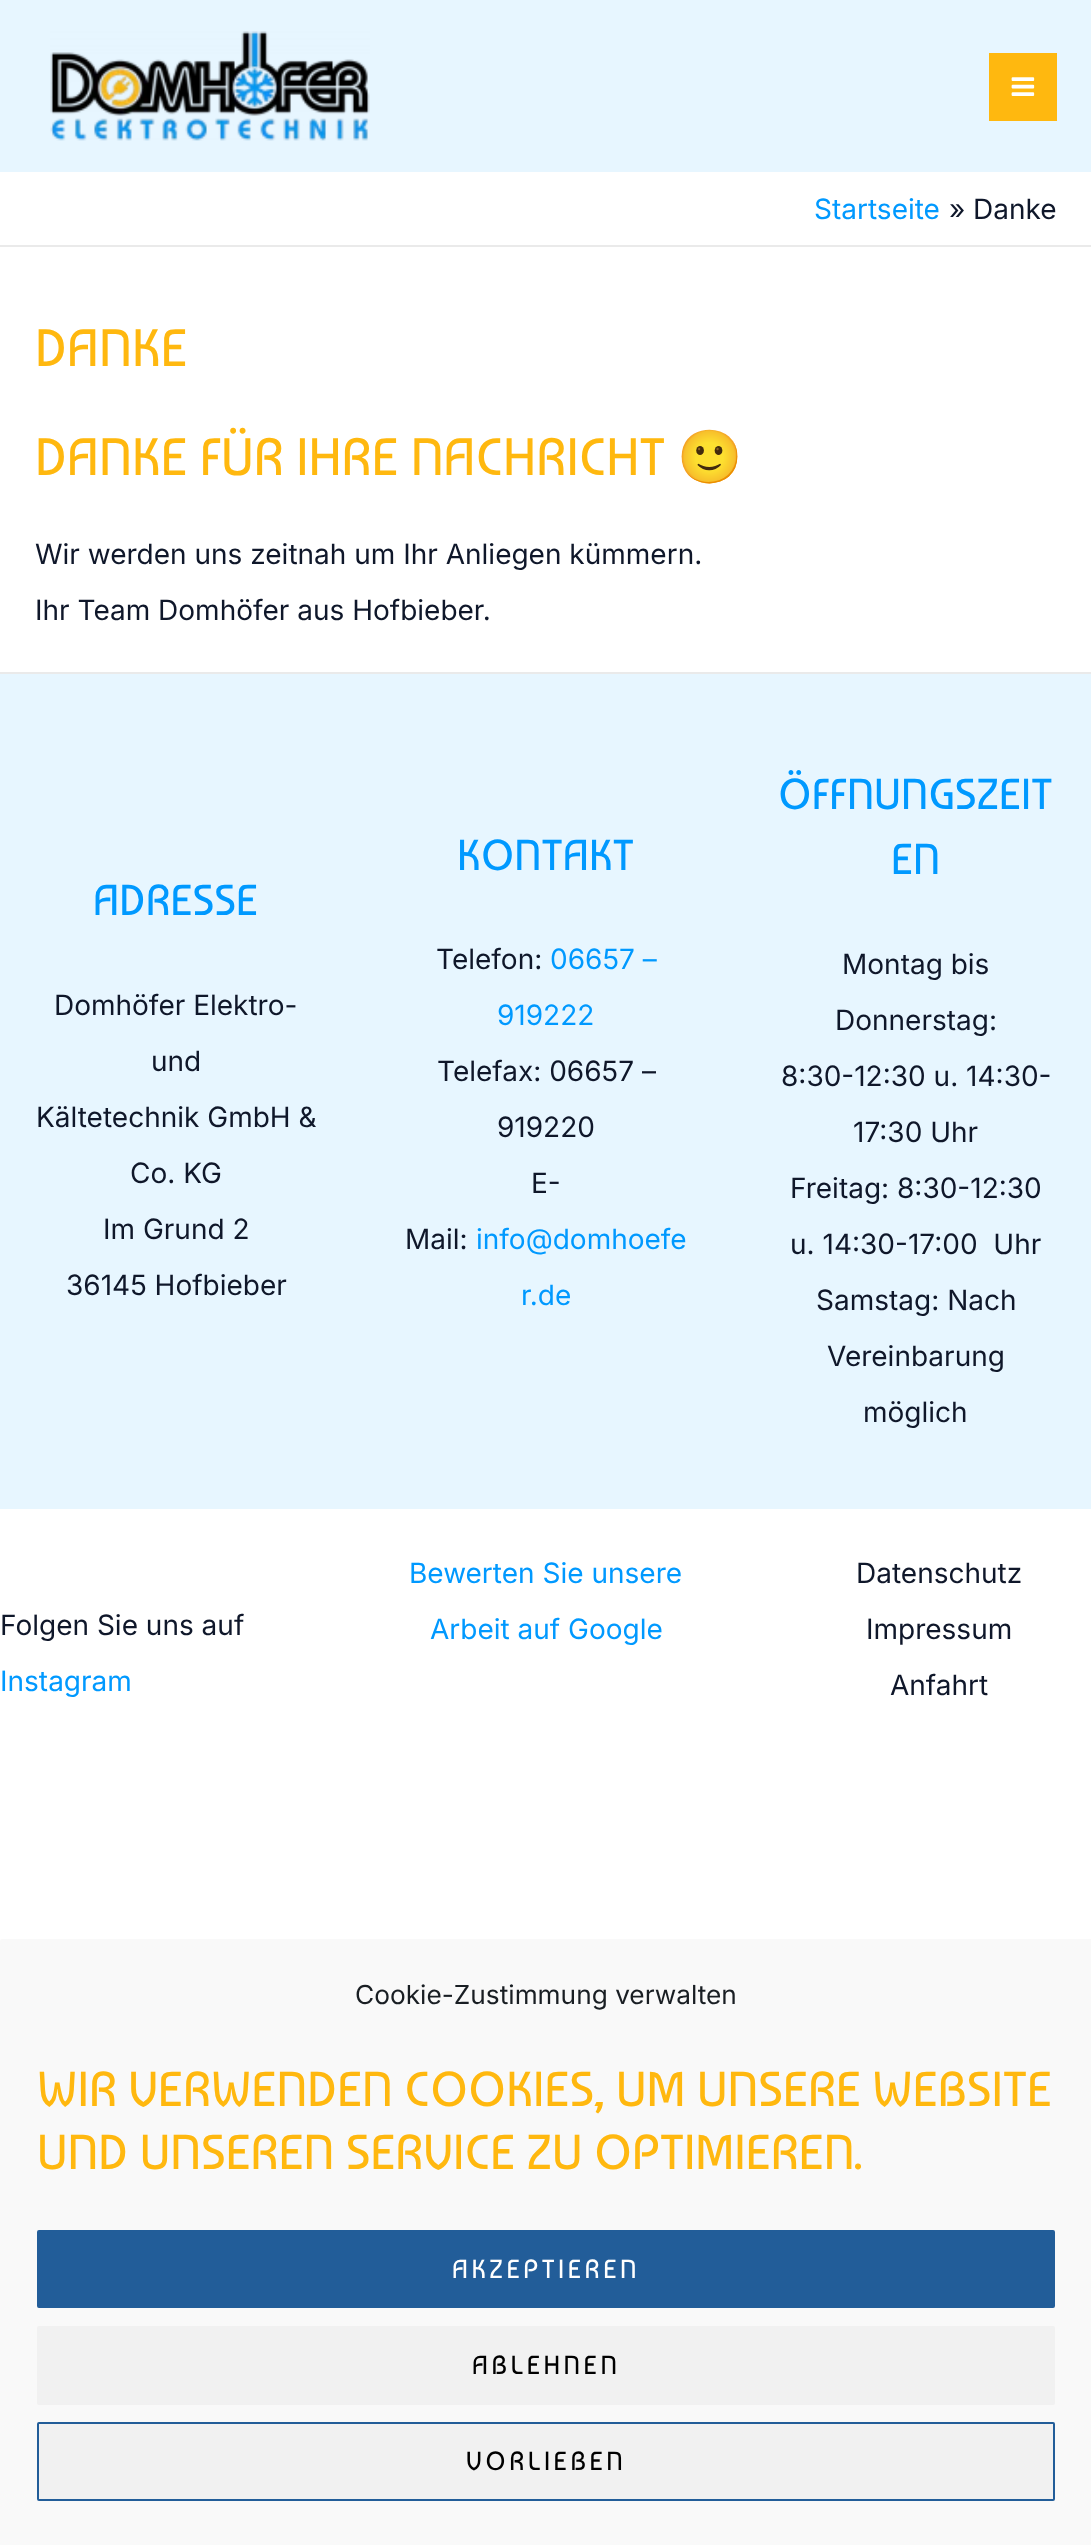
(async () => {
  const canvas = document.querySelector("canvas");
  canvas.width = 1091;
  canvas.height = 2545;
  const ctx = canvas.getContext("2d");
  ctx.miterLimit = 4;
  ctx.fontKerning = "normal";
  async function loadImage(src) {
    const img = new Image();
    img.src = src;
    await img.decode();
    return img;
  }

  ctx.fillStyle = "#ffffff";
  ctx.fillRect(0, 0, 1091, 2545);
  ctx.fillStyle = "#e7f6ff";
  ctx.fillRect(0, 0, 1091, 172);
  ctx.drawImage(await loadImage("img/1.png"), 50, 31, 320, 110);
  ctx.fillStyle = "#ffb80f";
  ctx.fillRect(989, 53, 68, 68);
  ctx.drawImage(await loadImage("img/2.png"), 1011, 77, 24, 19);
  for (const [x, y, w, h, color] of [
    [0, 245, 1091, 2, "#eaeaea"],
    [0, 674, 1091, 835, "#e7f6ff"],
    [0, 672, 1091, 2, "#eaeaea"],
  ]) {
    ctx.fillStyle = color;
    ctx.fillRect(x, y, w, h);
  }
  ctx.fillStyle = "#f9f9f9";
  ctx.beginPath();
  ctx.roundRect(0, 1939, 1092, 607, 2);
  ctx.fill();
  ctx.fillStyle = "#225d99";
  ctx.beginPath();
  ctx.roundRect(38, 2231, 1016, 76, 1);
  ctx.fill();
  ctx.strokeStyle = "#225d99";
  ctx.lineWidth = 2;
  ctx.stroke();
  ctx.fillStyle = "#f1f1f1";
  ctx.beginPath();
  ctx.roundRect(37, 2326, 1018, 79, 2);
  ctx.fill();
  ctx.beginPath();
  ctx.roundRect(38, 2423, 1016, 77, 1);
  ctx.fill();
  ctx.stroke();
  ctx.font = "28px Inter";
  ctx.fillStyle = "#0099ff";
  ctx.fillText("Startseite", 814, 219);
  ctx.fillStyle = "#0f172a";
  ctx.fillText("»", 949, 219);
  ctx.fillText("Danke", 973, 219);
  ctx.font = "52.5px Baumans";
  ctx.fillStyle = "#ffb80f";
  ctx.fillText("DANKE", 35, 366);
  ctx.fillText("DANKE FÜR IHRE NACHRICHT", 35, 475);
  ctx.font = "52.5px Noto Color Emoji";
  ctx.fillText("🙂", 677, 475);
  ctx.font = "28px Inter";
  ctx.fillStyle = "#0f172a";
  ctx.fillText("Wir werden uns zeitnah um Ihr Anliegen kümmern.", 35, 564);
  ctx.fillText("Ihr Team Domhöfer aus Hofbieber.", 35, 620);
  ctx.font = "43.25px Baumans";
  ctx.fillStyle = "#0099ff";
  ctx.fillText("ADRESSE", 93, 915);
  ctx.font = "28px Inter";
  ctx.fillStyle = "#0f172a";
  for (const [text, x, y] of [
    ["Domhöfer Elektro-", 54, 1015],
    ["und", 151, 1071],
    ["Kältetechnik GmbH &", 36, 1127],
    ["Co. KG", 130, 1183],
    ["Im Grund 2", 103, 1239],
    ["36145 Hofbieber", 66, 1295],
  ]) {
    ctx.fillText(text, x, y);
  }
  ctx.font = "43.25px Baumans";
  ctx.fillStyle = "#0099ff";
  ctx.fillText("KONTAKT", 457, 870);
  ctx.font = "28px Inter";
  ctx.fillStyle = "#0f172a";
  ctx.fillText("Telefon:", 436, 969);
  ctx.fillStyle = "#0099ff";
  ctx.fillText("06657 –", 550, 969);
  ctx.fillText("919222", 497, 1025);
  ctx.fillStyle = "#0f172a";
  for (const [text, x, y] of [
    ["Telefax: 06657 –", 437, 1081],
    ["919220", 497, 1137],
    ["E-", 531, 1193],
    ["Mail:", 405, 1249],
  ]) {
    ctx.fillText(text, x, y);
  }
  ctx.fillStyle = "#0099ff";
  ctx.fillText("info@domhoefe", 476, 1249);
  ctx.fillText("r.de", 521, 1305);
  ctx.font = "43.25px Baumans";
  ctx.fillText("ÖFFNUNGSZEIT", 778, 809);
  ctx.fillText("EN", 891, 874);
  ctx.font = "28px Inter";
  ctx.fillStyle = "#0f172a";
  for (const [text, x, y] of [
    ["Montag bis", 842, 974],
    ["Donnerstag:", 835, 1030],
    ["8:30-12:30 u. 14:30-", 781, 1086],
    ["17:30 Uhr", 853, 1142],
    ["Freitag: 8:30-12:30", 790, 1198],
    ["u. 14:30-17:00  Uhr", 790, 1254],
    ["Samstag: Nach", 816, 1310],
    ["Vereinbarung", 827, 1366],
    ["möglich", 863, 1422],
    ["Folgen Sie uns auf", 0, 1635],
  ]) {
    ctx.fillText(text, x, y);
  }
  ctx.fillStyle = "#0099ff";
  for (const [text, x, y] of [
    ["Instagram", 0, 1691],
    ["Bewerten Sie unsere", 409, 1583],
    ["Arbeit auf Google", 430, 1639],
  ]) {
    ctx.fillText(text, x, y);
  }
  ctx.fillStyle = "#0f172a";
  for (const [text, x, y] of [
    ["Datenschutz", 856, 1583],
    ["Impressum", 866, 1639],
    ["Anfahrt", 890, 1695],
  ]) {
    ctx.fillText(text, x, y);
  }
  ctx.font = "26.25px Inter";
  ctx.fillStyle = "#191e23";
  ctx.fillText("Cookie-Zustimmung verwalten", 355, 2004);
  ctx.font = "49px Baumans";
  ctx.fillStyle = "#ffb80f";
  ctx.fillText("WIR VERWENDEN COOKIES, UM UNSERE WEBSITE", 37, 2106);
  ctx.fillText("UND UNSEREN SERVICE ZU OPTIMIEREN.", 37, 2169);
  ctx.letterSpacing = "3.5px";
  ctx.font = "26.25px Baumans";
  ctx.fillStyle = "#ffffff";
  ctx.fillText("AKZEPTIEREN", 452, 2278);
  ctx.fillStyle = "#000000";
  ctx.fillText("ABLEHNEN", 472, 2374);
  ctx.fillText("VORLIEBEN", 466, 2470);
})();
